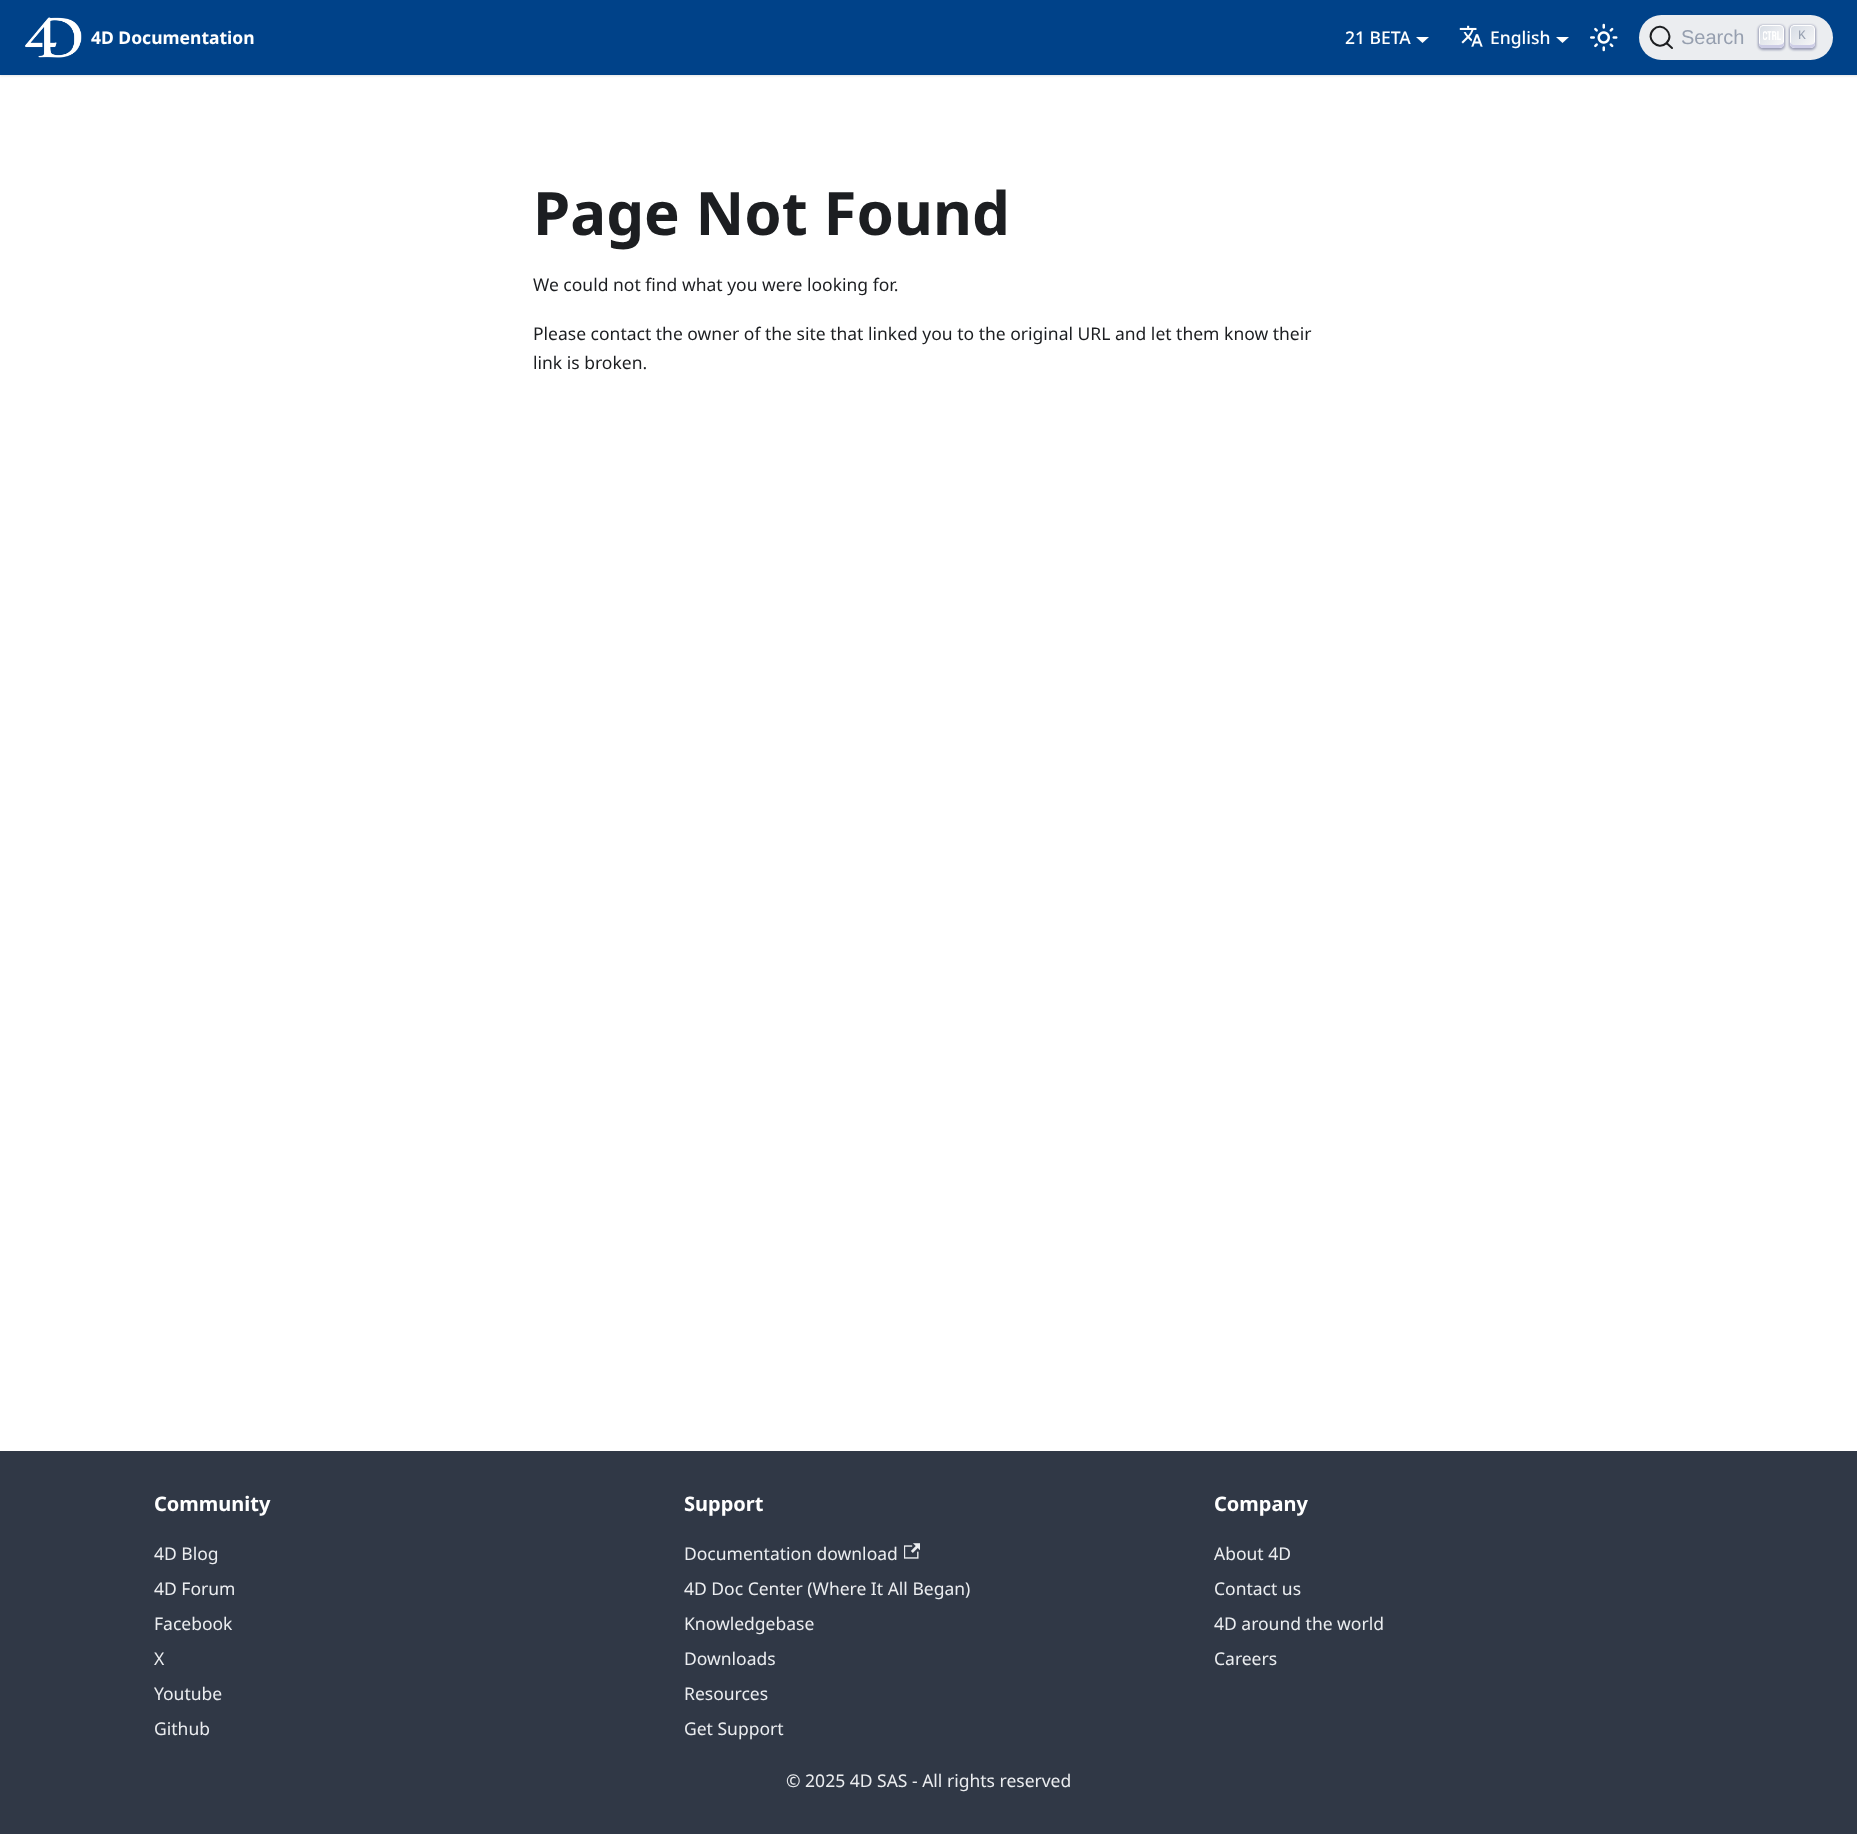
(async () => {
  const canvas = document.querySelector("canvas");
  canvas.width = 1857;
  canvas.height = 1834;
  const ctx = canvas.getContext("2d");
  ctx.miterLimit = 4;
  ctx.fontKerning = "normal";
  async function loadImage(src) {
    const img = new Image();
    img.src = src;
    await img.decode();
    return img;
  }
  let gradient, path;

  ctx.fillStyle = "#ffffff";
  ctx.fillRect(0, 0, 1857, 1834);
  ctx.fillStyle = "rgba(0, 0, 0, 0.1)";
  ctx.filter = "blur(1px)";
  ctx.beginPath();
  ctx.rect(0, 1, 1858, 75);
  ctx.fill();
  ctx.filter = "none";
  ctx.fillStyle = "#004289";
  ctx.fillRect(0, 0, 1857, 75);
  ctx.drawImage(await loadImage("img/1.png"), 25, 17, 57, 41);
  ctx.fillStyle = "#ffffff";
  path = new Path2D("M1416 37H1429L1422.5 43Z");
  ctx.fill(path);
  ctx.drawImage(await loadImage("img/2.png"), 1459, 25, 24, 22);
  path = new Path2D("M1556 37H1569L1562.5 43Z");
  ctx.fill(path);
  ctx.drawImage(await loadImage("img/3.png"), 1590, 23, 28, 29);
  ctx.fillStyle = "#ebedf0";
  ctx.beginPath();
  ctx.roundRect(1639, 15, 194, 45, 22.5);
  ctx.fill();
  path = new Path2D("M1666.5 43L1672 48L1666.5 43C1658 51.5 1644.5 38.5 1653.5 29.5C1662 21 1675.5 34.5 1666.5 43Z");
  ctx.strokeStyle = "#1c1e21";
  ctx.lineWidth = 2;
  ctx.lineCap = "round";
  ctx.lineJoin = "round";
  ctx.stroke(path);
  ctx.fillStyle = "rgba(30, 35, 90, 0.4)";
  ctx.filter = "blur(1px)";
  ctx.beginPath();
  ctx.roundRect(1758, 25, 27, 25, 5);
  ctx.fill();
  ctx.filter = "none";
  gradient = ctx.createLinearGradient(1759, 24, 1783, 48);
  gradient.addColorStop(0, "#d5dbe4");
  gradient.addColorStop(1, "#f8f8f8");
  ctx.fillStyle = gradient;
  ctx.beginPath();
  ctx.roundRect(1759.5, 25.5, 24, 22, 3.5);
  ctx.fill();
  ctx.strokeStyle = "#ffffff";
  ctx.lineWidth = 1;
  ctx.lineJoin = "miter";
  ctx.stroke();
  ctx.fillStyle = "#cdcde6";
  path = new Path2D("M1784 41.5C1783.5 44 1782 45 1777 45H1762C1760.5 45 1759.5 44 1759 43C1759 48 1761.5 48 1766 48H1777C1783 48 1784 47.5 1784 41.5Z");
  ctx.fill(path);
  ctx.drawImage(await loadImage("img/4.png"), 1763, 31, 18, 9);
  ctx.fillStyle = "rgba(30, 35, 90, 0.4)";
  ctx.filter = "blur(1px)";
  ctx.beginPath();
  ctx.roundRect(1789, 25, 27, 25, 5);
  ctx.fill();
  ctx.filter = "none";
  gradient = ctx.createLinearGradient(1791, 24, 1814, 48);
  gradient.addColorStop(0, "#d5dbe4");
  gradient.addColorStop(1, "#f8f8f8");
  ctx.fillStyle = gradient;
  ctx.beginPath();
  ctx.roundRect(1790.5, 25.5, 24, 22, 3.5);
  ctx.fill();
  ctx.stroke();
  ctx.fillStyle = "#cdcde6";
  path = new Path2D("M1815 41.5C1814.5 44 1813 45 1808 45H1794C1791.5 45 1790.5 43.5 1790 42C1790 47.5 1791.5 48 1797 48H1808C1814 48 1815 47.5 1815 41.5Z");
  ctx.fill(path);
  ctx.fillStyle = "#303846";
  ctx.fillRect(0, 1451, 1857, 383);
  ctx.drawImage(await loadImage("img/5.png"), 904, 1543, 16, 16);
  ctx.font = "bold 17.5px Noto Sans";
  ctx.fillStyle = "#ffffff";
  ctx.fillText("4D Documentation", 91, 44);
  ctx.font = "500 17.5px Noto Sans";
  ctx.fillText("21 BETA", 1345, 44);
  ctx.fillText("English", 1490, 44);
  ctx.font = "20px Liberation Sans";
  ctx.fillStyle = "#969faf";
  ctx.fillText("Search", 1681, 44);
  ctx.font = "13px Liberation Mono";
  ctx.fillText("K", 1798, 39);
  ctx.font = "bold 60px Noto Sans";
  ctx.fillStyle = "#1c1e21";
  ctx.fillText("Page Not Found", 533, 235);
  ctx.font = "17.5px Noto Sans";
  for (const [text, x, y] of [
    ["We could not find what you were looking for.", 533, 291],
    ["Please contact the owner of the site that linked you to the original URL and let them know their", 533, 340],
    ["link is broken.", 533, 369],
  ]) {
    ctx.fillText(text, x, y);
  }
  ctx.font = "bold 20px Noto Sans";
  ctx.fillStyle = "#ffffff";
  ctx.fillText("Community", 154, 1511);
  ctx.font = "17.5px Noto Sans";
  ctx.fillStyle = "#ebedf0";
  for (const [text, x, y] of [
    ["4D Blog", 154, 1560],
    ["4D Forum", 154, 1595],
    ["Facebook", 154, 1630],
    ["X", 154, 1665],
    ["Youtube", 154, 1700],
    ["Github", 154, 1735],
  ]) {
    ctx.fillText(text, x, y);
  }
  ctx.font = "bold 20px Noto Sans";
  ctx.fillStyle = "#ffffff";
  ctx.fillText("Support", 684, 1511);
  ctx.font = "17.5px Noto Sans";
  ctx.fillStyle = "#ebedf0";
  for (const [text, x, y] of [
    ["Documentation download", 684, 1560],
    ["4D Doc Center (Where It All Began)", 684, 1595],
    ["Knowledgebase", 684, 1630],
    ["Downloads", 684, 1665],
    ["Resources", 684, 1700],
    ["Get Support", 684, 1735],
  ]) {
    ctx.fillText(text, x, y);
  }
  ctx.font = "bold 20px Noto Sans";
  ctx.fillStyle = "#ffffff";
  ctx.fillText("Company", 1214, 1511);
  ctx.font = "17.5px Noto Sans";
  ctx.fillStyle = "#ebedf0";
  for (const [text, x, y] of [
    ["About 4D", 1214, 1560],
    ["Contact us", 1214, 1595],
    ["4D around the world", 1214, 1630],
    ["Careers", 1214, 1665],
    ["© 2025 4D SAS - All rights reserved", 786, 1787],
  ]) {
    ctx.fillText(text, x, y);
  }
})();
